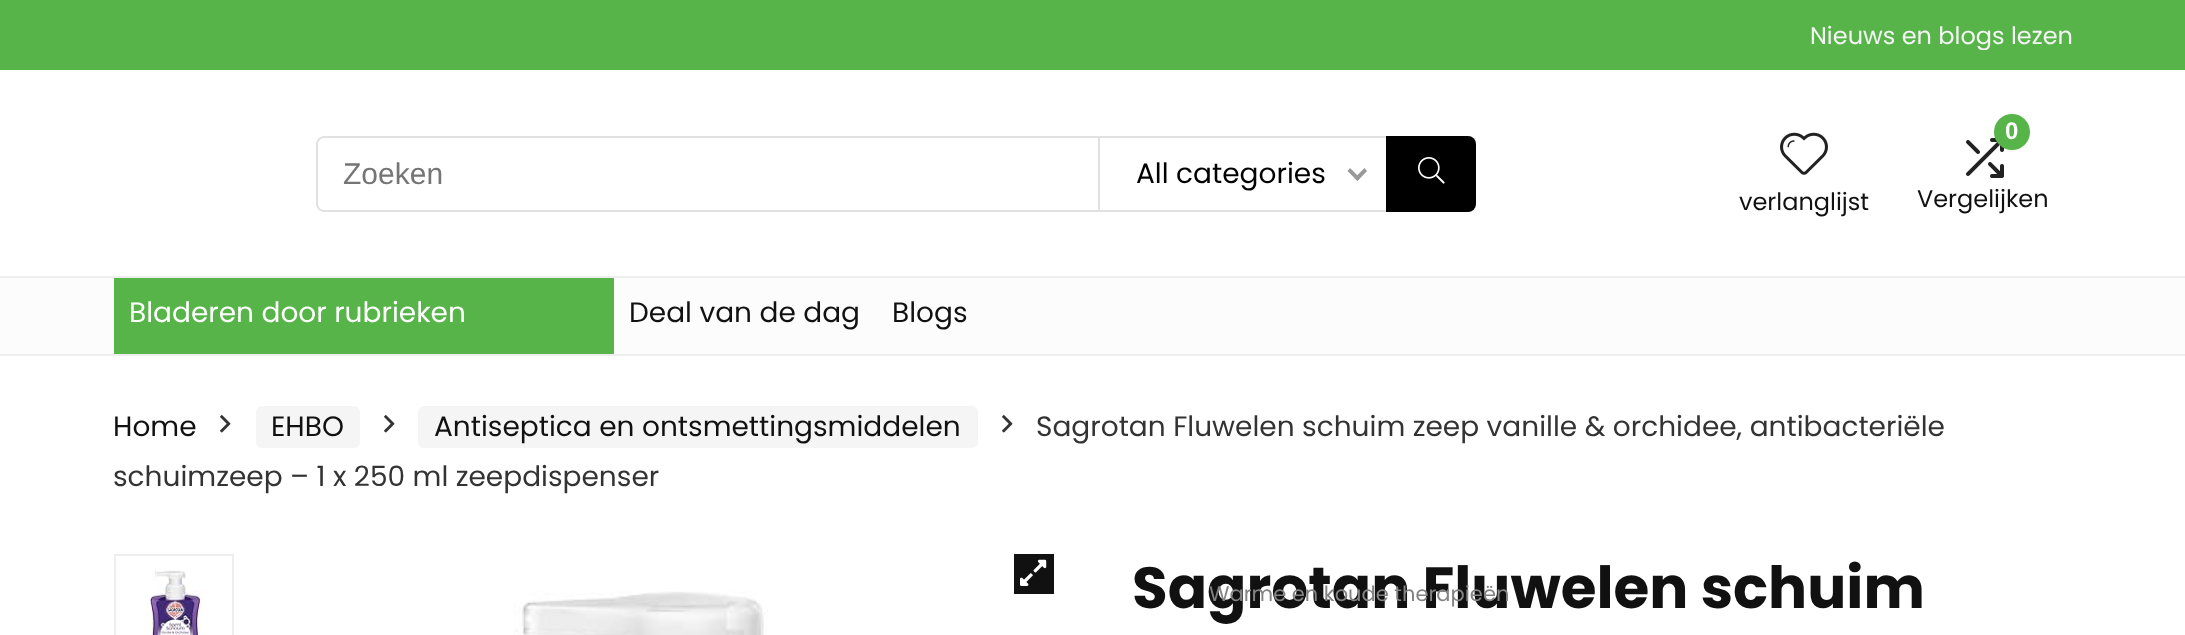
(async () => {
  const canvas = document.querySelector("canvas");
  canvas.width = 2185;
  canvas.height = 635;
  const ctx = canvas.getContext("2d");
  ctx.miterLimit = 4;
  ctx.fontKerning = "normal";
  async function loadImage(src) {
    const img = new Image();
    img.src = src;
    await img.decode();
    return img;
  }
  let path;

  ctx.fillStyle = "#ffffff";
  ctx.fillRect(0, 0, 2185, 635);
  ctx.fillStyle = "#57b448";
  ctx.fillRect(0, 0, 2185, 70);
  ctx.fillStyle = "#000000";
  ctx.beginPath();
  ctx.roundRect(1386, 136, 90, 76, [0, 8, 8, 0]);
  ctx.fill();
  ctx.drawImage(await loadImage("img/1.png"), 1418, 157, 27, 27);
  ctx.fillStyle = "#e1e1e1";
  path = new Path2D("M324 136H1098V212H324C320 212 316 208 316 204V144C316 140 320 136 324 136ZM324 138H1098V210H324C321 210 318 207 318 204V144C318 141 321 138 324 138Z");
  ctx.fill(path, "evenodd");
  for (const [x, y, w, h, color] of [
    [1098, 136, 288, 2, "#e1e1e1"],
    [1098, 210, 288, 2, "#e1e1e1"],
    [1098, 136, 2, 76, "#e1e1e1"],
  ]) {
    ctx.fillStyle = color;
    ctx.fillRect(x, y, w, h);
  }
  ctx.fillStyle = "#999999";
  path = new Path2D("M1364.5 168L1367 171L1357.5 181L1354.5 178Z");
  ctx.fill(path);
  path = new Path2D("M1350 168L1360 178L1357.5 181L1347.5 171Z");
  ctx.fill(path);
  ctx.drawImage(await loadImage("img/2.png"), 1780, 132, 48, 43);
  ctx.drawImage(await loadImage("img/3.png"), 1966, 138, 38, 40);
  ctx.fillStyle = "#57b448";
  ctx.beginPath();
  ctx.arc(2012, 132, 18, 0, Math.PI * 2);
  ctx.fill();
  for (const [x, y, w, h, color] of [
    [0, 278, 2185, 76, "#fcfcfc"],
    [0, 276, 2185, 2, "#eeeeee"],
    [0, 354, 2185, 2, "#eeeeee"],
    [114, 278, 500, 76, "#57b448"],
  ]) {
    ctx.fillStyle = color;
    ctx.fillRect(x, y, w, h);
  }
  ctx.drawImage(await loadImage("img/4.png"), 220, 415, 11, 18);
  ctx.fillStyle = "#f5f5f5";
  ctx.beginPath();
  ctx.roundRect(256, 406, 104, 42, 6);
  ctx.fill();
  ctx.drawImage(await loadImage("img/4.png"), 384, 415, 11, 18);
  ctx.beginPath();
  ctx.roundRect(418, 406, 560, 42, 6);
  ctx.fill();
  ctx.drawImage(await loadImage("img/4.png"), 1002, 415, 11, 18);
  ctx.strokeStyle = "#eeeeee";
  ctx.lineWidth = 2;
  ctx.strokeRect(115, 555, 118, 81);
  ctx.drawImage(await loadImage("img/5.png"), 145, 570, 58, 65);
  ctx.fillStyle = "#111111";
  ctx.fillRect(1014, 554, 40, 40);
  ctx.drawImage(await loadImage("img/6.png"), 1020, 559, 27, 27);
  ctx.drawImage(await loadImage("img/7.png"), 513, 591, 255, 44);
  ctx.save();
  ctx.beginPath();
  ctx.rect(1810, 20, 264, 30);
  ctx.clip();
  ctx.font = "24px Poppins";
  ctx.fillStyle = "#f4f4f4";
  ctx.fillText("Nieuws en blogs lezen", 1810, 44);
  ctx.restore();
  ctx.font = "30px Liberation Sans";
  ctx.fillStyle = "#757575";
  ctx.fillText("Zoeken", 343, 184);
  ctx.font = "28px Poppins";
  ctx.fillStyle = "#000000";
  ctx.fillText("All categories", 1136, 183);
  ctx.font = "24px Poppins";
  ctx.fillStyle = "#111111";
  ctx.fillText("verlanglijst", 1739, 210);
  ctx.font = "bold 24px Liberation Sans";
  ctx.fillStyle = "#ffffff";
  ctx.fillText("0", 2005, 139);
  ctx.font = "24px Poppins";
  ctx.fillStyle = "#111111";
  ctx.fillText("Vergelijken", 1917, 207);
  ctx.font = "28px Poppins";
  ctx.fillStyle = "#ffffff";
  ctx.fillText("Bladeren door rubrieken", 129, 322);
  ctx.fillStyle = "#111111";
  for (const [text, x, y] of [
    ["Deal van de dag", 629, 322],
    ["Blogs", 892, 322],
    ["Home", 113, 436],
    ["EHBO", 271, 436],
    ["Antiseptica en ontsmettingsmiddelen", 434, 436],
  ]) {
    ctx.fillText(text, x, y);
  }
  ctx.fillStyle = "#333333";
  ctx.fillText("Sagrotan Fluwelen schuim zeep vanille & orchidee, antibacteriële", 1036, 436);
  ctx.fillText("schuimzeep – 1 x 250 ml zeepdispenser", 113, 486);
  ctx.font = "bold 58px Poppins";
  ctx.fillStyle = "#111111";
  ctx.fillText("Sagrotan Fluwelen schuim", 1132, 608);
  ctx.font = "21px Poppins";
  ctx.fillStyle = "#838383";
  ctx.fillText("Warme en koude therapieën", 1209, 601);
})();
